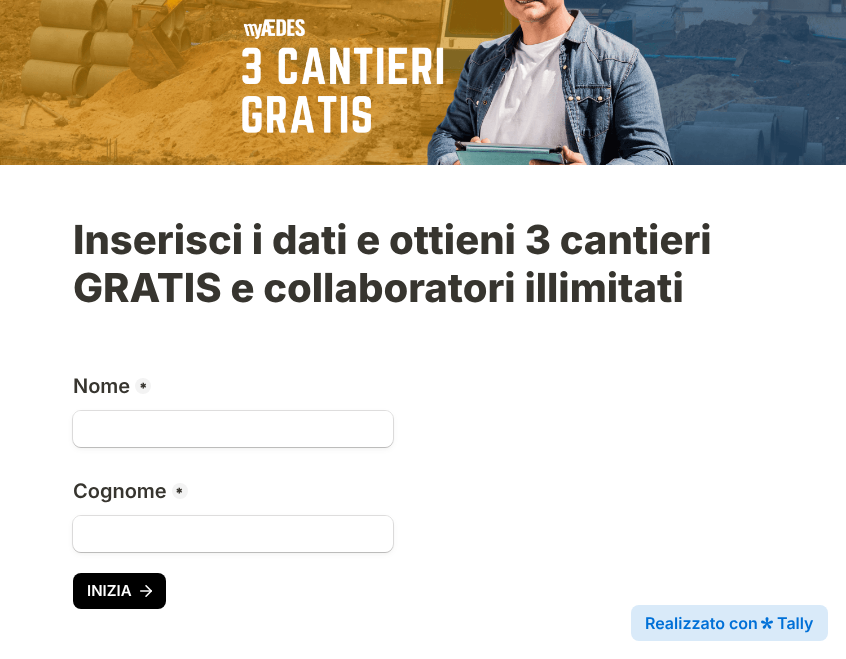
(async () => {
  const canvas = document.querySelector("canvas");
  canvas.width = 846;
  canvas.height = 659;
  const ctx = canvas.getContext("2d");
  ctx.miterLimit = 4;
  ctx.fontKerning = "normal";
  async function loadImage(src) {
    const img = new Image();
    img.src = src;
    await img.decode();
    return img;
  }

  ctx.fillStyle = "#ffffff";
  ctx.fillRect(0, 0, 846, 659);
  ctx.drawImage(await loadImage("img/1.png"), 0, 0, 846, 165);
  ctx.fillStyle = "#f3f3f3";
  ctx.beginPath();
  ctx.arc(143, 386, 8, 0, Math.PI * 2);
  ctx.fill();
  ctx.fillStyle = "rgba(61, 59, 53, 0.08)";
  ctx.filter = "blur(2.5px)";
  ctx.beginPath();
  ctx.roundRect(73, 413, 320, 36, 8);
  ctx.fill();
  ctx.filter = "none";
  ctx.beginPath();
  ctx.roundRect(72.5, 410.5, 321, 37, 8.5);
  ctx.strokeStyle = "rgba(61, 59, 53, 0.16)";
  ctx.stroke();
  ctx.fillStyle = "rgba(0, 0, 0, 0.12)";
  ctx.filter = "blur(0.5px)";
  ctx.beginPath();
  ctx.roundRect(73, 412, 320, 36, 8);
  ctx.fill();
  ctx.filter = "none";
  ctx.fillStyle = "#ffffff";
  ctx.beginPath();
  ctx.roundRect(73, 411, 320, 36, 8);
  ctx.fill();
  ctx.fillStyle = "#f3f3f3";
  ctx.beginPath();
  ctx.arc(180, 491, 8, 0, Math.PI * 2);
  ctx.fill();
  ctx.fillStyle = "rgba(61, 59, 53, 0.08)";
  ctx.filter = "blur(2.5px)";
  ctx.beginPath();
  ctx.roundRect(73, 518, 320, 36, 8);
  ctx.fill();
  ctx.filter = "none";
  ctx.beginPath();
  ctx.roundRect(72.5, 515.5, 321, 37, 8.5);
  ctx.stroke();
  ctx.fillStyle = "rgba(0, 0, 0, 0.12)";
  ctx.filter = "blur(0.5px)";
  ctx.beginPath();
  ctx.roundRect(73, 517, 320, 36, 8);
  ctx.fill();
  ctx.filter = "none";
  ctx.fillStyle = "#ffffff";
  ctx.beginPath();
  ctx.roundRect(73, 516, 320, 36, 8);
  ctx.fill();
  ctx.fillStyle = "#000000";
  ctx.beginPath();
  ctx.roundRect(73, 573, 93, 36, 8);
  ctx.fill();
  ctx.drawImage(await loadImage("img/2.png"), 140, 585, 12, 12);
  ctx.fillStyle = "#d9eaf9";
  ctx.beginPath();
  ctx.roundRect(631, 605, 197, 36, 8);
  ctx.fill();
  ctx.drawImage(await loadImage("img/3.png"), 761, 617, 12, 12);
  ctx.font = "800 40px Inter";
  ctx.fillStyle = "#37352f";
  ctx.fillText("Inserisci i dati e ottieni 3 cantieri", 73, 254);
  ctx.fillText("GRATIS e collaboratori illimitati", 73, 302);
  ctx.font = "600 20px Inter";
  ctx.fillText("Nome", 73, 393);
  ctx.font = "900 14px Inter";
  ctx.fillText("*", 139, 393);
  ctx.font = "600 20px Inter";
  ctx.fillText("Cognome", 73, 498);
  ctx.font = "900 14px Inter";
  ctx.fillText("*", 175, 498);
  ctx.font = "600 15px Inter";
  ctx.fillStyle = "#ffffff";
  ctx.fillText("INIZIA", 87, 596);
  ctx.font = "600 16px Inter";
  ctx.fillStyle = "#0070d7";
  ctx.fillText("Realizzato con", 645, 629);
  ctx.fillText("Tally", 777, 629);
})();
